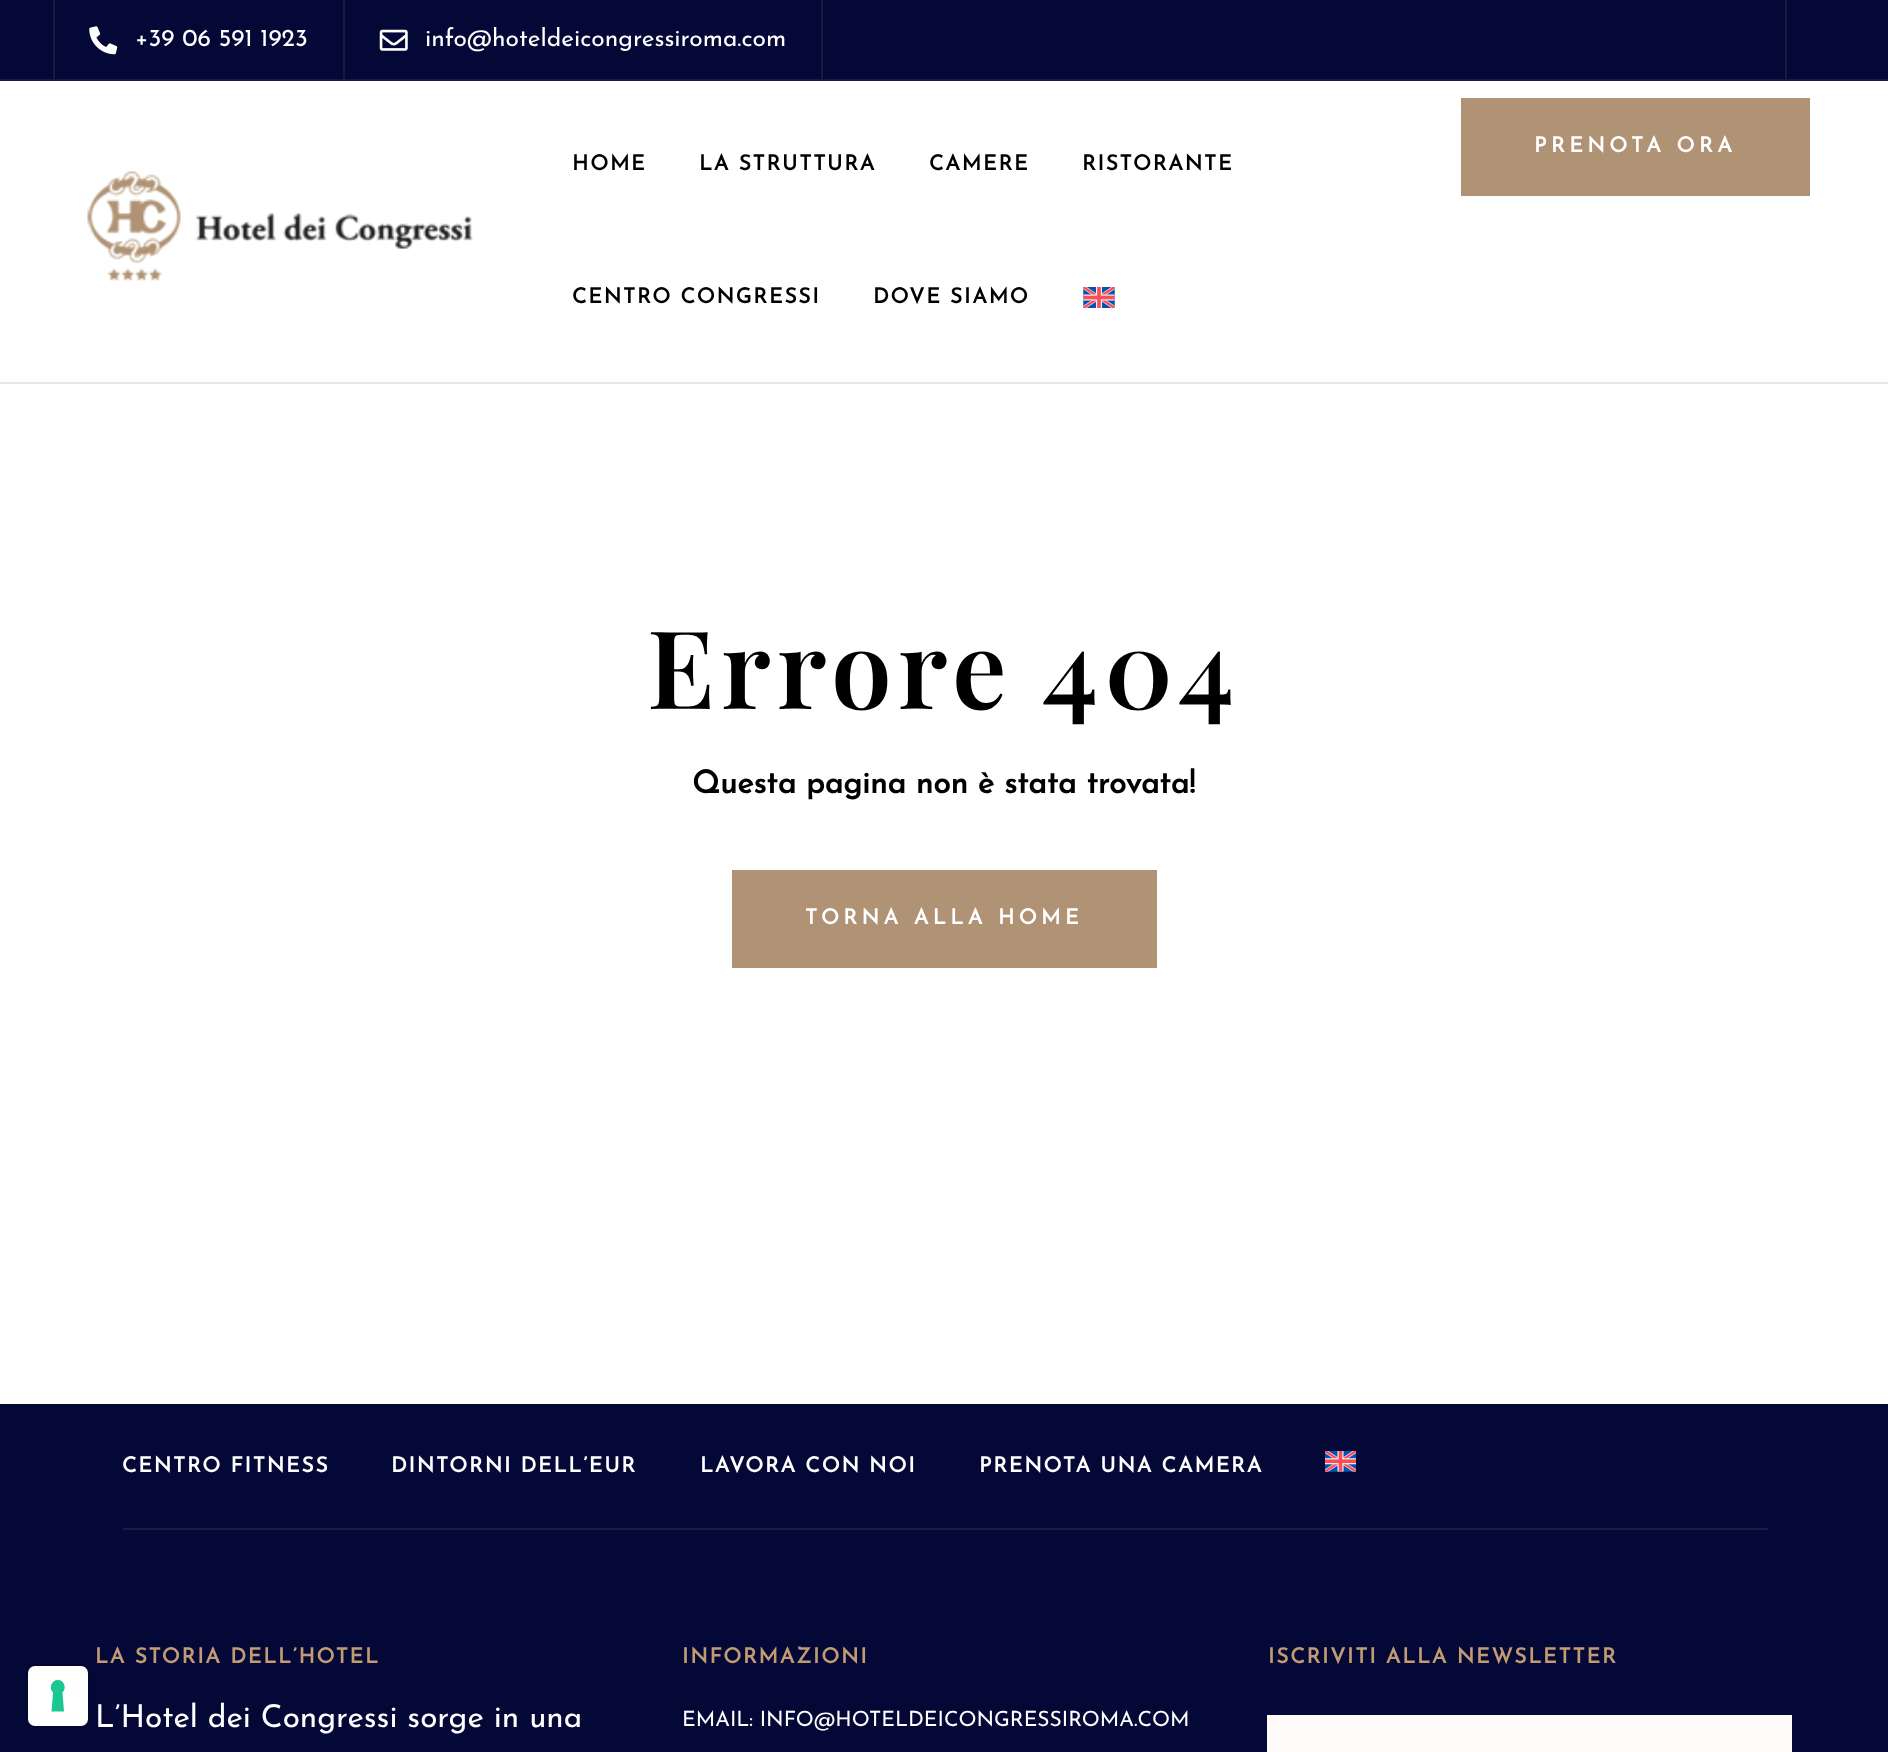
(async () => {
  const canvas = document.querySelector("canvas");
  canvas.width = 1888;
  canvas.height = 1752;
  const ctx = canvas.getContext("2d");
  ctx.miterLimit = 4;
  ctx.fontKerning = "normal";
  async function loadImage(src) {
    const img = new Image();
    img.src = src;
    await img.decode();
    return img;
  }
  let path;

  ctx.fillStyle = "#ffffff";
  ctx.fillRect(0, 0, 1888, 1752);
  for (const [x, y, w, h, color] of [
    [0, 382, 1888, 2, "#e6e6e6"],
    [0, 0, 1888, 79, "#040836"],
    [0, 79, 1888, 2, "#171b42"],
    [821, 0, 2, 79, "#171b42"],
    [53, 0, 2, 79, "#171b42"],
    [343, 0, 2, 79, "#171b42"],
  ]) {
    ctx.fillStyle = color;
    ctx.fillRect(x, y, w, h);
  }
  ctx.drawImage(await loadImage("img/1.png"), 89, 26, 29, 29);
  ctx.drawImage(await loadImage("img/2.png"), 379, 29, 29, 22);
  ctx.fillRect(1785, 0, 2, 79);
  ctx.fillStyle = "#b09374";
  ctx.fillRect(1461, 98, 349, 98);
  ctx.drawImage(await loadImage("img/3.png"), 87, 171, 386, 110);
  ctx.drawImage(await loadImage("img/4.png"), 1083, 287, 32, 21);
  ctx.fillRect(732, 870, 425, 98);
  ctx.fillStyle = "#040836";
  ctx.fillRect(0, 1404, 1888, 348);
  ctx.beginPath();
  ctx.roundRect(27, 1665, 61, 61, 8);
  ctx.strokeStyle = "#03072e";
  ctx.lineWidth = 2;
  ctx.stroke();
  ctx.fillStyle = "#ffffff";
  ctx.beginPath();
  ctx.roundRect(28, 1666, 60, 60, 7);
  ctx.fill();
  ctx.fillStyle = "#1cc691";
  path = new Path2D("M58 1680C64 1680 67 1688 62.5 1692.5L64 1711.5H51.5L53 1692.5C48.5 1688 51.5 1680 58 1680Z");
  ctx.fill(path, "evenodd");
  ctx.fillStyle = "#1a1d43";
  ctx.fillRect(123, 1528, 1645, 2);
  ctx.drawImage(await loadImage("img/5.png"), 1325, 1451, 31, 21);
  ctx.fillStyle = "#fffbf9";
  ctx.fillRect(1267, 1715, 525, 37);
  ctx.font = "100 24.5px Josefin Sans";
  ctx.fillStyle = "#ffffff";
  ctx.fillText("+39 06 591 1923", 135, 46);
  ctx.fillText("info@hoteldeicongressiroma.com", 425, 46);
  ctx.letterSpacing = "4.4px";
  ctx.font = "bold 21px Josefin Sans";
  ctx.fillText("PRENOTA ORA", 1534, 152);
  ctx.letterSpacing = "1.75px";
  ctx.fillStyle = "#000000";
  for (const [text, x, y] of [
    ["HOME", 572, 170],
    ["LA STRUTTURA", 699, 170],
    ["CAMERE", 929, 170],
    ["RISTORANTE", 1082, 170],
    ["CENTRO CONGRESSI", 572, 303],
    ["DOVE SIAMO", 873, 303],
  ]) {
    ctx.fillText(text, x, y);
  }
  ctx.letterSpacing = "6.1px";
  ctx.font = "600 108.5px Playfair Display";
  ctx.fillText("Errore 404", 647, 709);
  ctx.letterSpacing = "0px";
  ctx.font = "bold 31.5px Josefin Sans";
  ctx.fillText("Questa pagina non è stata trovata!", 692, 793);
  ctx.letterSpacing = "4.4px";
  ctx.font = "bold 21px Josefin Sans";
  ctx.fillStyle = "#ffffff";
  ctx.fillText("TORNA ALLA HOME", 805, 924);
  ctx.letterSpacing = "1.75px";
  for (const [text, x, y] of [
    ["CENTRO FITNESS", 122, 1472],
    ["DINTORNI DELL’EUR", 391, 1472],
    ["LAVORA CON NOI", 700, 1472],
    ["PRENOTA UNA CAMERA", 979, 1472],
  ]) {
    ctx.fillText(text, x, y);
  }
  ctx.fillStyle = "#c29b73";
  ctx.fillText("LA STORIA DELL’HOTEL", 95, 1663);
  ctx.letterSpacing = "0px";
  ctx.font = "100 31.5px Josefin Sans";
  ctx.fillStyle = "#ffffff";
  ctx.fillText("L’Hotel dei Congressi sorge in una", 95, 1727);
  ctx.letterSpacing = "1.75px";
  ctx.font = "bold 21px Josefin Sans";
  ctx.fillStyle = "#c29b73";
  ctx.fillText("INFORMAZIONI", 682, 1663);
  ctx.letterSpacing = "0px";
  ctx.font = "100 21px Josefin Sans";
  ctx.fillStyle = "#ffffff";
  ctx.fillText("EMAIL: INFO@HOTELDEICONGRESSIROMA.COM", 682, 1726);
  ctx.letterSpacing = "1.75px";
  ctx.font = "bold 21px Josefin Sans";
  ctx.fillStyle = "#c29b73";
  ctx.fillText("ISCRIVITI ALLA NEWSLETTER", 1268, 1663);
})();
